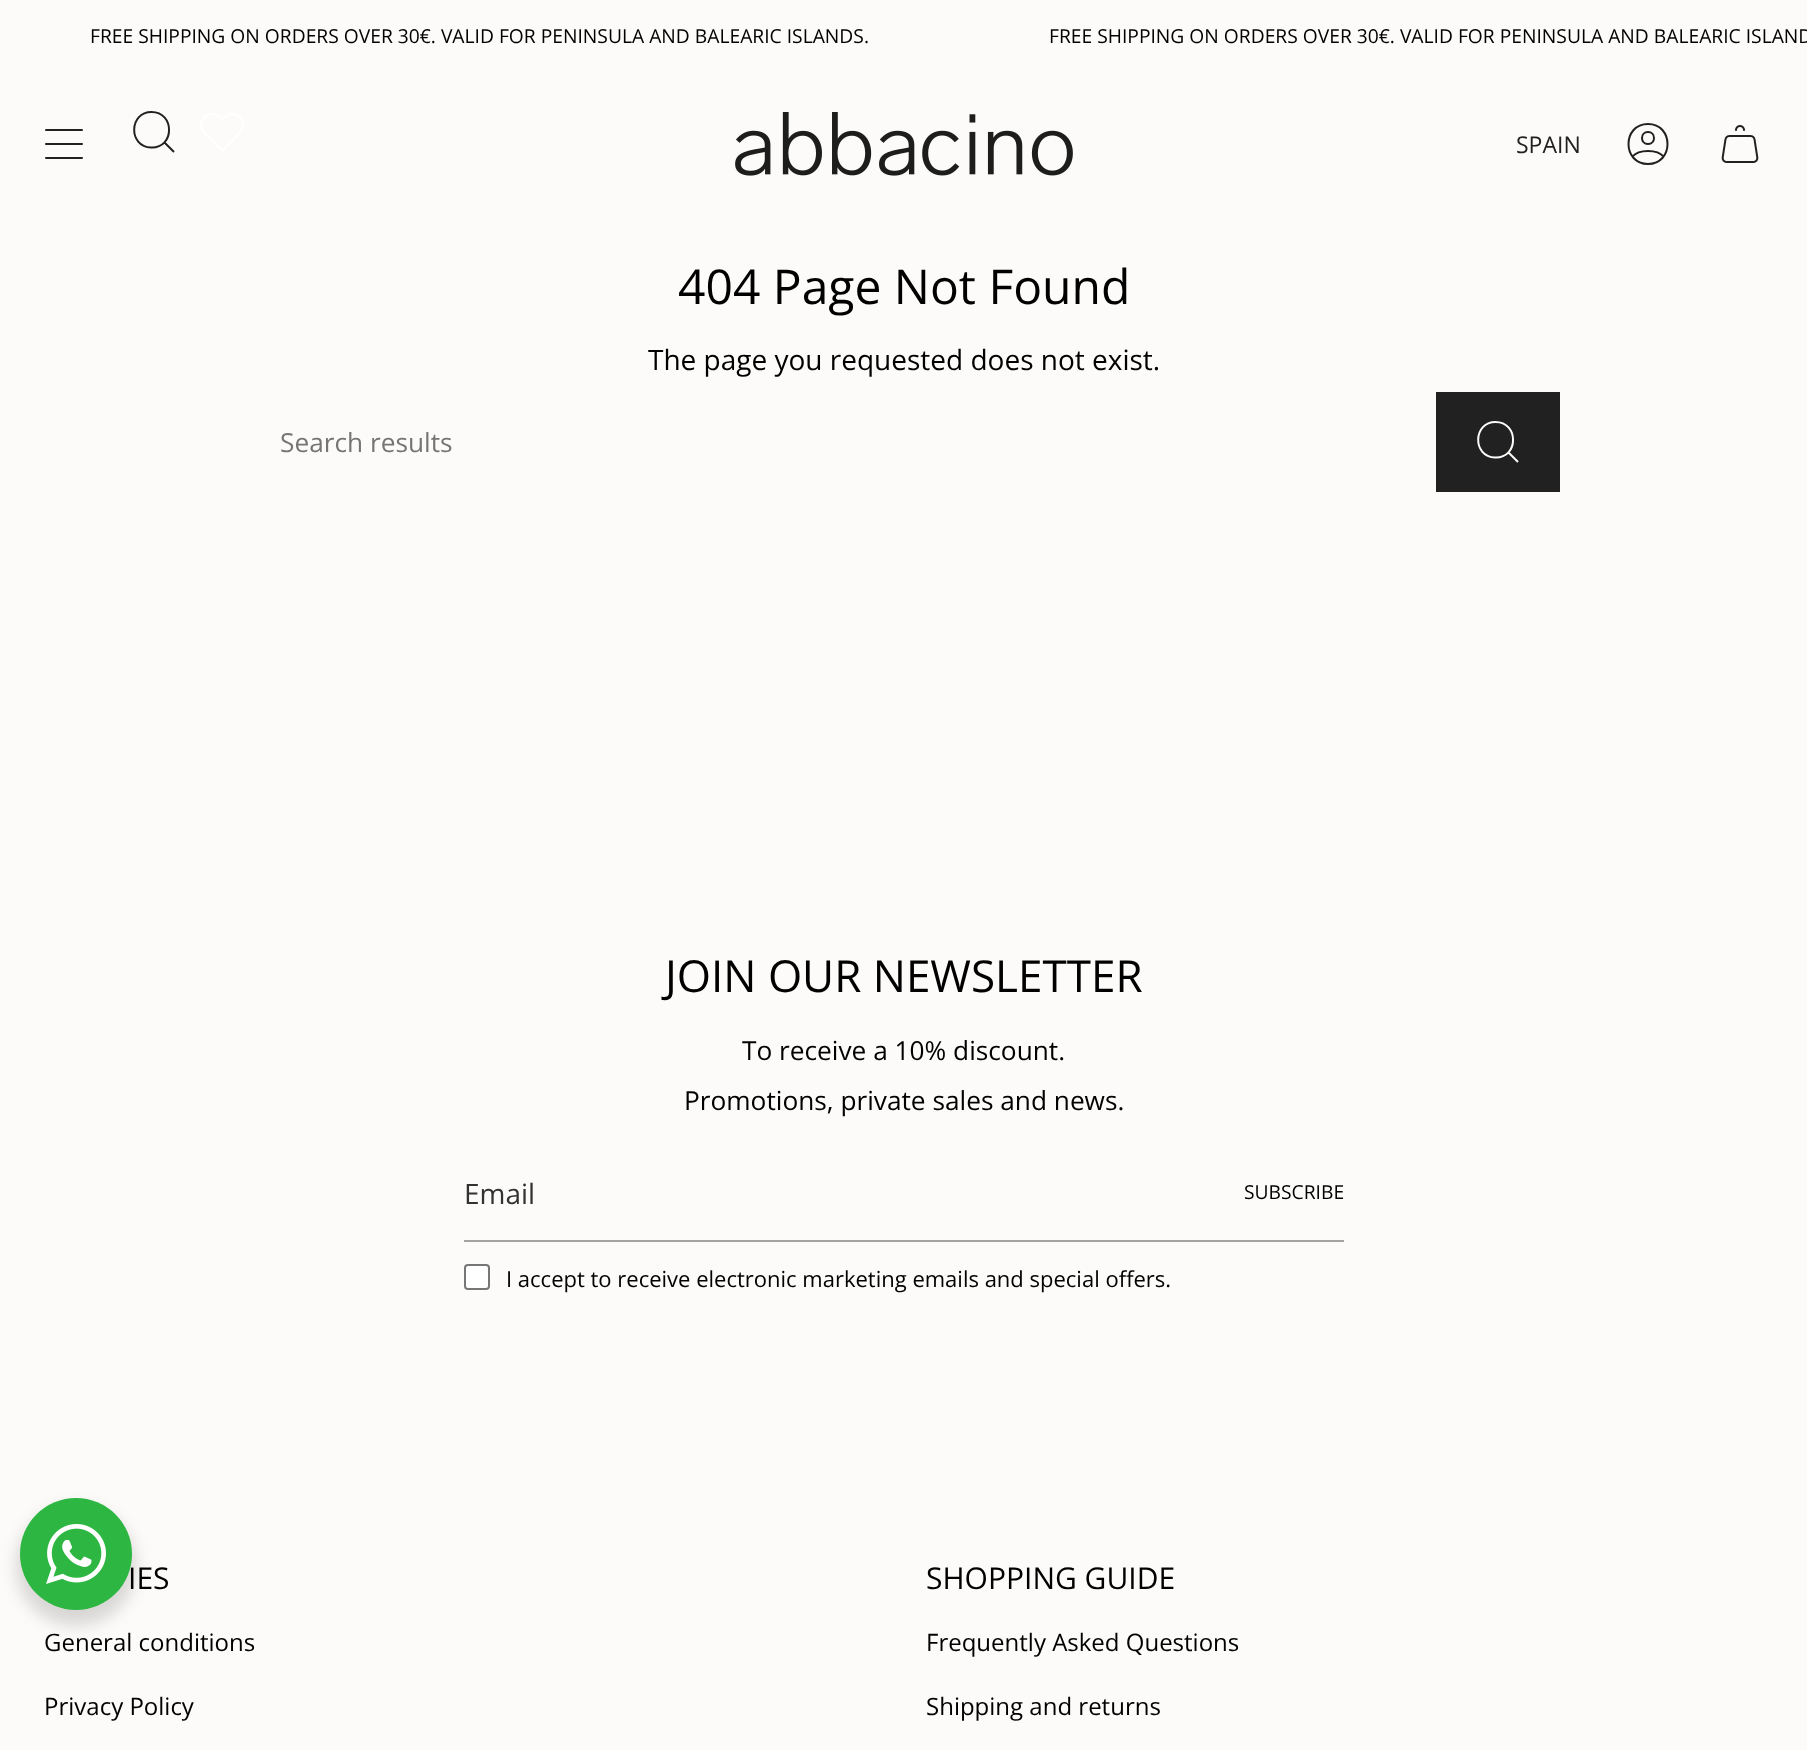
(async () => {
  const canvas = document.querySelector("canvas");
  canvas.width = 1807;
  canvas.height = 1750;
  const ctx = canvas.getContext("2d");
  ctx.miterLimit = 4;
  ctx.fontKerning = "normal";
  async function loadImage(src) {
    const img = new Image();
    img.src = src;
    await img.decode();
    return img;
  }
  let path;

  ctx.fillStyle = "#fcfbf9";
  ctx.fillRect(0, 0, 1807, 1750);
  path = new Path2D("M46 130H82M46 144H82M46 158H82");
  ctx.strokeStyle = "#212121";
  ctx.lineWidth = 2;
  ctx.lineCap = "round";
  ctx.lineJoin = "round";
  ctx.stroke(path);
  path = new Path2D("M151.5 112C175 112 175 148.5 151 147.5C128 146.5 129 112 151.5 112ZM164 142L174 152");
  ctx.lineCap = "butt";
  ctx.lineJoin = "miter";
  ctx.stroke(path);
  path = new Path2D("M239.5 117C233.5 111 227 114.5 222 119.5C220 117.5 218 115.5 215.5 114.5C206.5 112 198.5 121 202 129C203.5 132.5 206.5 135 209 137.5L222 150.5L232.5 140C238.5 134 248.5 126 239.5 117Z");
  ctx.strokeStyle = "#ffffff";
  ctx.lineCap = "round";
  ctx.lineJoin = "round";
  ctx.stroke(path);
  ctx.drawImage(await loadImage("img/1.png"), 735, 112, 338, 64);
  path = new Path2D("M1648 124C1622 124 1622 164 1648 164C1674 164 1674 124 1648 124ZM1632.5 156.5C1638.5 149 1657.5 149 1663.5 156.5M1648 144C1656 144 1656 132 1648 132C1640 132 1640 144 1648 144Z");
  ctx.strokeStyle = "#212121";
  ctx.stroke(path);
  ctx.drawImage(await loadImage("img/2.png"), 1721, 125, 38, 38);
  ctx.fillStyle = "#212121";
  ctx.fillRect(1436, 392, 124, 100);
  path = new Path2D("M1495.5 422C1519 422 1519 458.5 1495 457.5C1472 456.5 1473 422 1495.5 422ZM1508 452L1518 462");
  ctx.strokeStyle = "#fcfbf9";
  ctx.lineCap = "butt";
  ctx.lineJoin = "miter";
  ctx.stroke(path);
  ctx.fillStyle = "#a4a3a2";
  ctx.fillRect(464, 1240, 880, 2);
  ctx.fillStyle = "#ffffff";
  ctx.beginPath();
  ctx.roundRect(465, 1265, 24, 24, 3);
  ctx.fill();
  ctx.strokeStyle = "#767676";
  ctx.stroke();
  ctx.fillStyle = "rgba(0, 0, 0, 0.14)";
  ctx.filter = "blur(8px)";
  ctx.beginPath();
  ctx.roundRect(16, 1506, 120, 120, 60);
  ctx.fill();
  ctx.filter = "none";
  ctx.font = "19.25px Open Sans";
  ctx.fillStyle = "#000000";
  ctx.fillText("FREE SHIPPING ON ORDERS OVER 30€. VALID FOR PENINSULA AND BALEARIC ISLANDS.", 90, 43);
  ctx.fillText("FREE SHIPPING ON ORDERS OVER 30€. VALID FOR PENINSULA AND BALEARIC ISLAND", 1049, 43);
  ctx.font = "23px Open Sans";
  ctx.fillStyle = "#212121";
  ctx.fillText("SPAIN", 1516, 153);
  ctx.font = "48px Open Sans";
  ctx.fillStyle = "#000000";
  ctx.fillText("404 Page Not Found", 678, 304);
  ctx.font = "28px Open Sans";
  ctx.fillText("The page you requested does not exist.", 648, 370);
  ctx.font = "26.25px Open Sans";
  ctx.fillStyle = "#757575";
  ctx.fillText("Search results", 280, 452);
  ctx.font = "44px Open Sans";
  ctx.fillStyle = "#000000";
  ctx.fillText("JOIN OUR NEWSLETTER", 665, 992);
  ctx.font = "26.25px Open Sans";
  ctx.fillText("To receive a 10% discount.", 742, 1060);
  ctx.fillText("Promotions, private sales and news.", 684, 1110);
  ctx.font = "28px Open Sans";
  ctx.fillStyle = "#323232";
  ctx.fillText("Email", 464, 1204);
  ctx.font = "19.25px Open Sans";
  ctx.fillStyle = "#000000";
  ctx.fillText("SUBSCRIBE", 1244, 1199);
  ctx.font = "22px Open Sans";
  ctx.fillText("I accept to receive electronic marketing emails and special offers.", 506, 1287);
  ctx.font = "30px Open Sans";
  ctx.fillText("IES", 128, 1589);
  ctx.fillStyle = "#2db742";
  ctx.beginPath();
  ctx.arc(76, 1554, 56, 0, Math.PI * 2);
  ctx.fill();
  ctx.drawImage(await loadImage("img/3.png"), 46, 1524, 60, 60);
  ctx.font = "24px Open Sans";
  ctx.fillStyle = "#000000";
  ctx.fillText("General conditions", 44, 1651);
  ctx.fillText("Privacy Policy", 44, 1715);
  ctx.font = "30px Open Sans";
  ctx.fillText("SHOPPING GUIDE", 926, 1589);
  ctx.font = "24px Open Sans";
  ctx.fillText("Frequently Asked Questions", 926, 1651);
  ctx.fillText("Shipping and returns", 926, 1715);
})();
